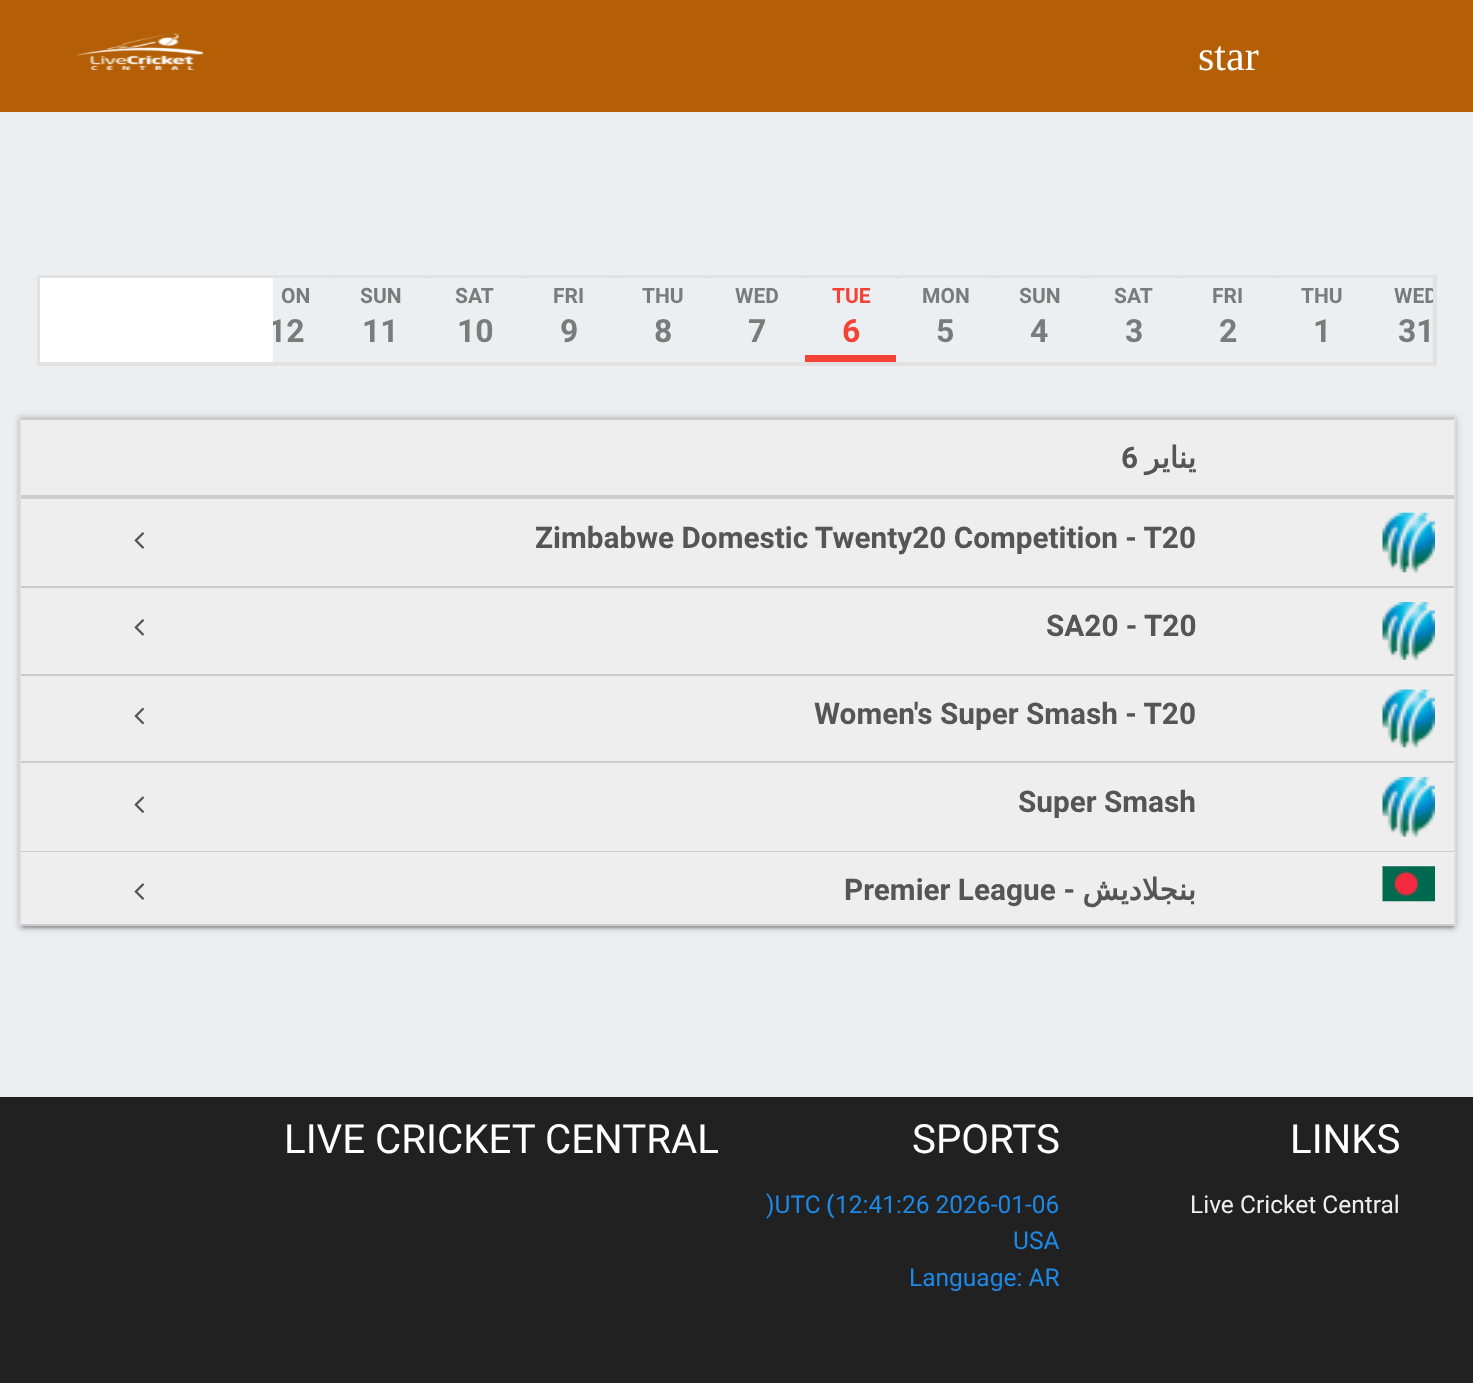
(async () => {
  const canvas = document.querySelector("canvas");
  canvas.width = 1473;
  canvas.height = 1383;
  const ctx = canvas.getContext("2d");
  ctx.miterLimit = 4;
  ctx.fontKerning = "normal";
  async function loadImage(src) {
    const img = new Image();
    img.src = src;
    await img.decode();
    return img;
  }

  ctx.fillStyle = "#eceff1";
  ctx.fillRect(0, 0, 1473, 1383);
  ctx.fillStyle = "#b45f05";
  ctx.fillRect(0, 0, 1473, 112);
  ctx.drawImage(await loadImage("img/1.png"), 77, 33, 126, 37);
  ctx.strokeStyle = "#e2e2e2";
  ctx.lineWidth = 4;
  ctx.strokeRect(39, 277, 1396, 87);
  for (const [x, y, w, h, color] of [
    [40, 278, 233, 84, "#ffffff"],
    [1276, 278, 157, 1, "#eceff1"],
    [273, 278, 60, 1, "#eceff1"],
    [334, 278, 91, 1, "#eceff1"],
    [429, 278, 91, 1, "#eceff1"],
    [523, 278, 91, 1, "#eceff1"],
    [618, 278, 91, 1, "#eceff1"],
    [712, 278, 91, 1, "#eceff1"],
    [805, 278, 91, 1, "#eceff1"],
    [805, 355, 91, 7, "#f44336"],
    [900, 278, 91, 1, "#eceff1"],
    [994, 278, 91, 1, "#eceff1"],
    [1089, 278, 91, 1, "#eceff1"],
    [1183, 278, 91, 1, "#eceff1"],
  ]) {
    ctx.fillStyle = color;
    ctx.fillRect(x, y, w, h);
  }
  ctx.fillStyle = "rgba(0, 0, 0, 0.2)";
  ctx.filter = "blur(1px)";
  ctx.beginPath();
  ctx.rect(23, 424, 1430, 504);
  ctx.fill();
  ctx.filter = "none";
  ctx.fillStyle = "rgba(0, 0, 0, 0.12)";
  ctx.filter = "blur(4.5px)";
  ctx.beginPath();
  ctx.rect(19, 417, 1437, 511);
  ctx.fill();
  ctx.filter = "none";
  ctx.fillStyle = "rgba(0, 0, 0, 0.14)";
  ctx.filter = "blur(2px)";
  ctx.beginPath();
  ctx.rect(19, 418, 1437, 511);
  ctx.fill();
  ctx.filter = "none";
  for (const [x, y, w, h, color] of [
    [19, 415, 1437, 2, "#dddddd"],
    [1454, 415, 2, 511, "#dddddd"],
    [19, 415, 2, 511, "#dddddd"],
    [21, 417, 1433, 3, "#cccccc"],
    [21, 420, 1433, 75, "#eeeeee"],
    [21, 495, 1433, 4, "#cccccc"],
    [21, 499, 1433, 87, "#eeeeee"],
    [21, 586, 1433, 2, "#cccccc"],
  ]) {
    ctx.fillStyle = color;
    ctx.fillRect(x, y, w, h);
  }
  ctx.drawImage(await loadImage("img/2.png"), 134, 532, 11, 17);
  ctx.drawImage(await loadImage("img/3.png"), 1382, 512, 53, 61);
  ctx.fillStyle = "#eeeeee";
  ctx.fillRect(21, 588, 1433, 86);
  ctx.fillStyle = "#cccccc";
  ctx.fillRect(21, 674, 1433, 2);
  ctx.drawImage(await loadImage("img/4.png"), 134, 619, 11, 17);
  ctx.drawImage(await loadImage("img/5.png"), 1382, 602, 53, 58);
  ctx.fillStyle = "#eeeeee";
  ctx.fillRect(21, 676, 1433, 85);
  ctx.fillStyle = "#cccccc";
  ctx.fillRect(21, 761, 1433, 2);
  ctx.drawImage(await loadImage("img/6.png"), 134, 707, 11, 18);
  ctx.drawImage(await loadImage("img/7.png"), 1382, 689, 53, 59);
  ctx.fillStyle = "#eeeeee";
  ctx.fillRect(21, 763, 1433, 88);
  ctx.fillStyle = "#cccccc";
  ctx.fillRect(21, 851, 1433, 1);
  ctx.drawImage(await loadImage("img/8.png"), 134, 796, 11, 17);
  ctx.drawImage(await loadImage("img/9.png"), 1382, 777, 53, 60);
  ctx.fillStyle = "#eeeeee";
  ctx.fillRect(21, 852, 1433, 72);
  ctx.fillStyle = "#cccccc";
  ctx.fillRect(21, 924, 1433, 2);
  ctx.drawImage(await loadImage("img/10.png"), 134, 883, 11, 17);
  ctx.drawImage(await loadImage("img/11.png"), 1382, 866, 53, 36);
  ctx.fillStyle = "#212121";
  ctx.fillRect(0, 1097, 1473, 286);
  ctx.font = "42px Liberation Serif";
  ctx.fillStyle = "#ffffff";
  ctx.fillText("star", 1198, 70);
  ctx.font = "bold 21px Roboto";
  ctx.fillStyle = "#7a7b7b";
  ctx.fillText("ON", 281, 303);
  ctx.save();
  ctx.beginPath();
  ctx.rect(273, 278, 1160, 84);
  ctx.clip();
  ctx.font = "bold 32px Roboto";
  ctx.fillText("12", 268, 342);
  ctx.restore();
  ctx.fillText("SUN", 360, 303);
  ctx.font = "bold 32px Roboto";
  ctx.fillText("11", 362, 342);
  ctx.font = "bold 21px Roboto";
  ctx.fillText("SAT", 455, 303);
  ctx.font = "bold 32px Roboto";
  ctx.fillText("10", 457, 342);
  ctx.font = "bold 21px Roboto";
  ctx.fillText("FRI", 553, 303);
  ctx.font = "bold 32px Roboto";
  ctx.fillText("9", 560, 342);
  ctx.font = "bold 21px Roboto";
  ctx.fillText("THU", 642, 303);
  ctx.font = "bold 32px Roboto";
  ctx.fillText("8", 654, 342);
  ctx.font = "bold 21px Roboto";
  ctx.fillText("WED", 735, 303);
  ctx.font = "bold 32px Roboto";
  ctx.fillText("7", 748, 342);
  ctx.font = "bold 21px Roboto";
  ctx.fillStyle = "#f44336";
  ctx.fillText("TUE", 832, 303);
  ctx.font = "bold 32px Roboto";
  ctx.fillText("6", 842, 342);
  ctx.font = "bold 21px Roboto";
  ctx.fillStyle = "#7a7b7b";
  ctx.fillText("MON", 922, 303);
  ctx.font = "bold 32px Roboto";
  ctx.fillText("5", 936, 342);
  ctx.font = "bold 21px Roboto";
  ctx.fillText("SUN", 1019, 303);
  ctx.font = "bold 32px Roboto";
  ctx.fillText("4", 1030, 342);
  ctx.font = "bold 21px Roboto";
  ctx.fillText("SAT", 1114, 303);
  ctx.font = "bold 32px Roboto";
  ctx.fillText("3", 1125, 342);
  ctx.font = "bold 21px Roboto";
  ctx.fillText("FRI", 1212, 303);
  ctx.font = "bold 32px Roboto";
  ctx.fillText("2", 1219, 342);
  ctx.font = "bold 21px Roboto";
  ctx.fillText("THU", 1301, 303);
  ctx.font = "bold 32px Roboto";
  ctx.fillText("1", 1313, 342);
  ctx.save();
  ctx.beginPath();
  ctx.rect(273, 278, 1160, 84);
  ctx.clip();
  ctx.font = "bold 21px Roboto";
  ctx.fillText("WED", 1394, 303);
  ctx.restore();
  ctx.fillText("31", 1398, 342);
  ctx.font = "bold 29.75px Roboto";
  ctx.fillStyle = "#555555";
  ctx.fillText("6", 1121, 468);
  ctx.direction = "rtl";
  ctx.font = "bold 29.75px DejaVu Sans";
  ctx.fillText("يناير", 1196, 468);
  ctx.direction = "ltr";
  ctx.font = "bold 29.75px Roboto";
  for (const [text, x, y] of [
    ["Zimbabwe Domestic Twenty20 Competition - T20", 535, 548],
    ["SA20 - T20", 1046, 636],
    ["Women's Super Smash - T20", 814, 724],
    ["Super Smash", 1018, 812],
    ["Premier League", 844, 900],
  ]) {
    ctx.fillText(text, x, y);
  }
  ctx.direction = "rtl";
  ctx.fillText("-", 1075, 900);
  ctx.font = "bold 29.75px DejaVu Sans";
  ctx.fillText("بنجلاديش", 1196, 900);
  ctx.direction = "ltr";
  ctx.font = "40.25px Roboto";
  ctx.fillStyle = "#ffffff";
  ctx.fillText("LIVE CRICKET CENTRAL", 284, 1153);
  ctx.fillText("SPORTS", 912, 1153);
  ctx.font = "24.5px Roboto";
  ctx.fillStyle = "#1e88e5";
  ctx.fillText(")UTC", 766, 1213);
  ctx.font = "500 24.5px Roboto";
  ctx.fillText("(", 826, 1213);
  ctx.font = "24.5px Roboto";
  for (const [text, x, y] of [
    ["12:41:26 2026-01-06", 835, 1213],
    ["USA", 1013, 1249],
    ["Language: AR", 909, 1286],
  ]) {
    ctx.fillText(text, x, y);
  }
  ctx.font = "40.25px Roboto";
  ctx.fillStyle = "#ffffff";
  ctx.fillText("LINKS", 1290, 1153);
  ctx.font = "24.5px Roboto";
  ctx.fillStyle = "#eeeeee";
  ctx.fillText("Live Cricket Central", 1190, 1213);
})();
